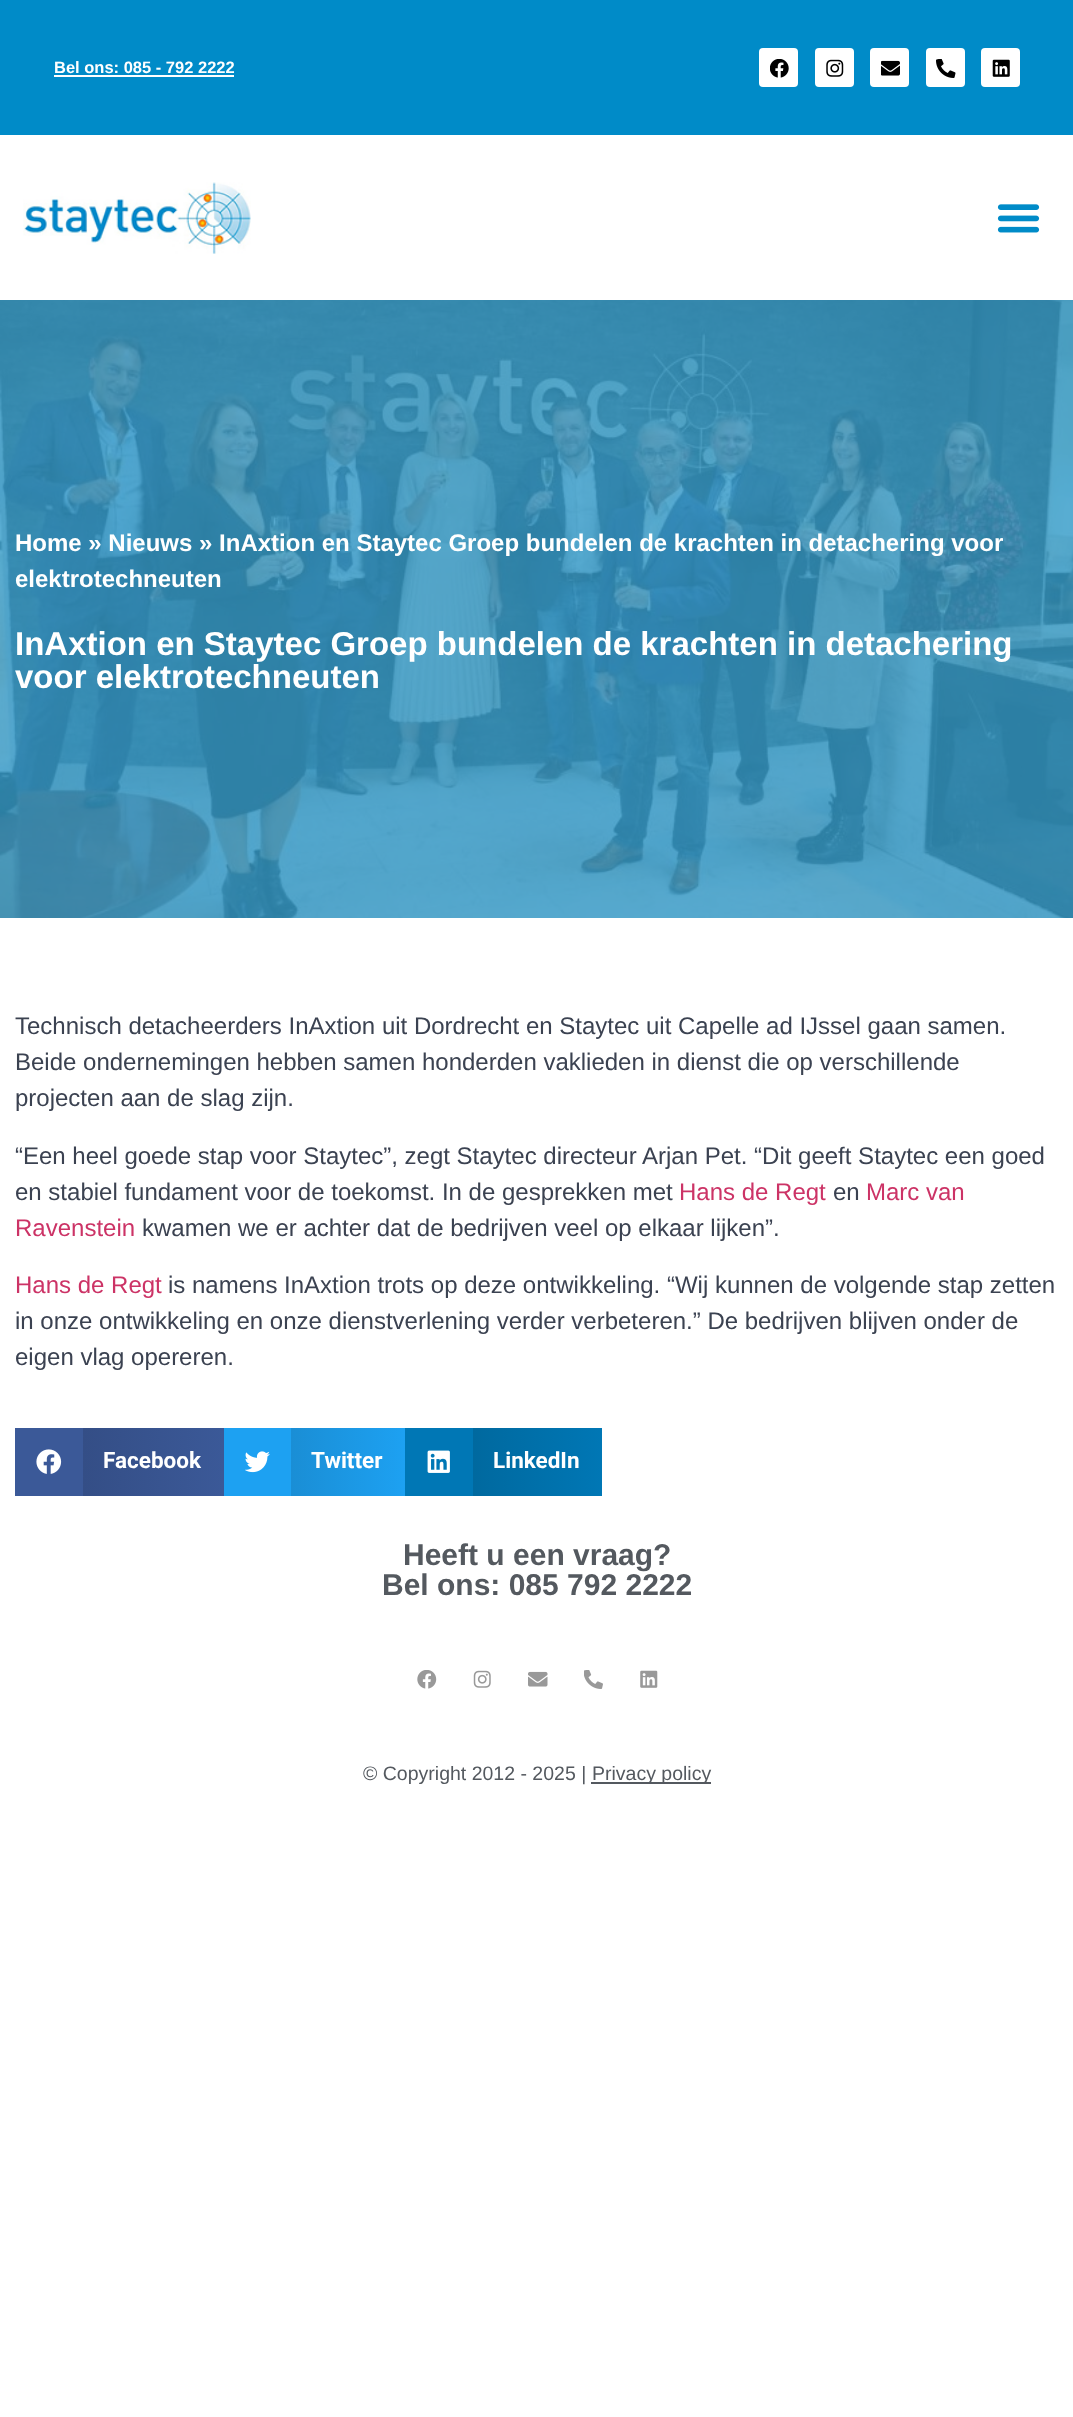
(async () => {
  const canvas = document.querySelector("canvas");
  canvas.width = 1073;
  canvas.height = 2417;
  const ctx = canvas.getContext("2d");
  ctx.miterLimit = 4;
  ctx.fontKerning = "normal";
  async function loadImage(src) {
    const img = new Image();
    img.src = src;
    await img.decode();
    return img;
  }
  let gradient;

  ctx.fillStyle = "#ffffff";
  ctx.fillRect(0, 0, 1073, 2417);
  ctx.fillStyle = "#008bc8";
  ctx.fillRect(0, 0, 1073, 135);
  ctx.fillStyle = "#ffffff";
  ctx.fillRect(54, 75, 180, 2);
  ctx.beginPath();
  ctx.roundRect(759, 48, 39, 39, 4);
  ctx.fill();
  ctx.drawImage(await loadImage("img/1.png"), 770, 59, 19, 19);
  ctx.beginPath();
  ctx.roundRect(815, 48, 39, 39, 4);
  ctx.fill();
  ctx.drawImage(await loadImage("img/2.png"), 826, 59, 18, 18);
  ctx.beginPath();
  ctx.roundRect(870, 48, 39, 39, 4);
  ctx.fill();
  ctx.drawImage(await loadImage("img/3.png"), 881, 60, 19, 16);
  ctx.beginPath();
  ctx.roundRect(926, 48, 39, 39, 4);
  ctx.fill();
  ctx.drawImage(await loadImage("img/4.png"), 936, 59, 20, 19);
  ctx.beginPath();
  ctx.roundRect(981, 48, 39, 39, 4);
  ctx.fill();
  ctx.drawImage(await loadImage("img/5.png"), 992, 59, 18, 18);
  ctx.drawImage(await loadImage("img/6.png"), 23, 182, 228, 72);
  ctx.drawImage(await loadImage("img/7.png"), 997, 204, 43, 29);
  ctx.drawImage(await loadImage("img/8.png"), 0, 300, 1073, 618);
  ctx.fillStyle = "#3b5998";
  ctx.fillRect(15, 1428, 68, 68);
  ctx.drawImage(await loadImage("img/9.png"), 36, 1449, 26, 25);
  gradient = ctx.createLinearGradient(83, 1462, 224, 1462);
  gradient.addColorStop(0, "#344e86");
  gradient.addColorStop(1, "#3b5998");
  ctx.fillStyle = gradient;
  ctx.fillRect(83, 1428, 141, 68);
  ctx.fillStyle = "#1da1f2";
  ctx.fillRect(224, 1428, 67, 68);
  ctx.drawImage(await loadImage("img/10.png"), 245, 1451, 25, 22);
  gradient = ctx.createLinearGradient(291, 1462, 405, 1462);
  gradient.addColorStop(0, "#1a8ed5");
  gradient.addColorStop(1, "#1da1f2");
  ctx.fillStyle = gradient;
  ctx.fillRect(291, 1428, 114, 68);
  ctx.fillStyle = "#0077b5";
  ctx.fillRect(405, 1428, 68, 68);
  ctx.drawImage(await loadImage("img/11.png"), 427, 1450, 23, 23);
  gradient = ctx.createLinearGradient(473, 1462, 602, 1462);
  gradient.addColorStop(0, "#00699f");
  gradient.addColorStop(1, "#0077b5");
  ctx.fillStyle = gradient;
  ctx.fillRect(473, 1428, 129, 68);
  ctx.drawImage(await loadImage("img/12.png"), 417, 1670, 20, 19);
  ctx.drawImage(await loadImage("img/13.png"), 473, 1670, 18, 18);
  ctx.drawImage(await loadImage("img/14.png"), 528, 1671, 20, 16);
  ctx.drawImage(await loadImage("img/15.png"), 584, 1670, 19, 19);
  ctx.drawImage(await loadImage("img/16.png"), 640, 1670, 18, 18);
  ctx.fillStyle = "#54595f";
  ctx.fillRect(591, 1782, 120, 2);
  ctx.font = "bold 16.5px Liberation Sans";
  ctx.fillStyle = "#ffffff";
  ctx.fillText("Bel ons: 085 - 792 2222", 54, 73);
  ctx.font = "bold 24px Liberation Sans";
  ctx.fillText("Home » Nieuws » InAxtion en Staytec Groep bundelen de krachten in detachering voor", 15, 551);
  ctx.fillText("elektrotechneuten", 15, 587);
  ctx.font = "bold 33px Liberation Sans";
  ctx.fillText("InAxtion en Staytec Groep bundelen de krachten in detachering", 15, 655);
  ctx.fillText("voor elektrotechneuten", 15, 688);
  ctx.font = "24px Liberation Sans";
  ctx.fillStyle = "#3b4251";
  for (const [text, x, y] of [
    ["Technisch detacheerders InAxtion uit Dordrecht en Staytec uit Capelle ad IJssel gaan samen.", 15, 1034],
    ["Beide ondernemingen hebben samen honderden vaklieden in dienst die op verschillende", 15, 1070],
    ["projecten aan de slag zijn.", 15, 1106],
    ["“Een heel goede stap voor Staytec”, zegt Staytec directeur Arjan Pet. “Dit geeft Staytec een goed", 15, 1164],
    ["en stabiel fundament voor de toekomst. In de gesprekken met", 15, 1200],
  ]) {
    ctx.fillText(text, x, y);
  }
  ctx.fillStyle = "#cc3366";
  ctx.fillText("Hans de Regt", 679, 1200);
  ctx.fillStyle = "#3b4251";
  ctx.fillText("en", 833, 1200);
  ctx.fillStyle = "#cc3366";
  ctx.fillText("Marc van", 866, 1200);
  ctx.fillText("Ravenstein", 15, 1236);
  ctx.fillStyle = "#3b4251";
  ctx.fillText("kwamen we er achter dat de bedrijven veel op elkaar lijken”.", 142, 1236);
  ctx.fillStyle = "#cc3366";
  ctx.fillText("Hans de Regt", 15, 1293);
  ctx.fillStyle = "#3b4251";
  for (const [text, x, y] of [
    ["is namens InAxtion trots op deze ontwikkeling. “Wij kunnen de volgende stap zetten", 168, 1293],
    ["in onze ontwikkeling en onze dienstverlening verder verbeteren.” De bedrijven blijven onder de", 15, 1329],
    ["eigen vlag opereren.", 15, 1365],
  ]) {
    ctx.fillText(text, x, y);
  }
  ctx.font = "bold 22.5px Roboto";
  ctx.fillStyle = "#ffffff";
  for (const [text, x, y] of [
    ["Facebook", 103, 1468],
    ["Twitter", 311, 1468],
    ["LinkedIn", 493, 1468],
  ]) {
    ctx.fillText(text, x, y);
  }
  ctx.font = "bold 30px Liberation Sans";
  ctx.fillStyle = "#54595f";
  ctx.fillText("Heeft u een vraag?", 403, 1565);
  ctx.fillText("Bel ons: 085 792 2222", 382, 1595);
  ctx.font = "19.5px Liberation Sans";
  ctx.fillText("© Copyright 2012 - 2025 |", 363, 1780);
  ctx.fillText("Privacy policy", 592, 1780);
})();
